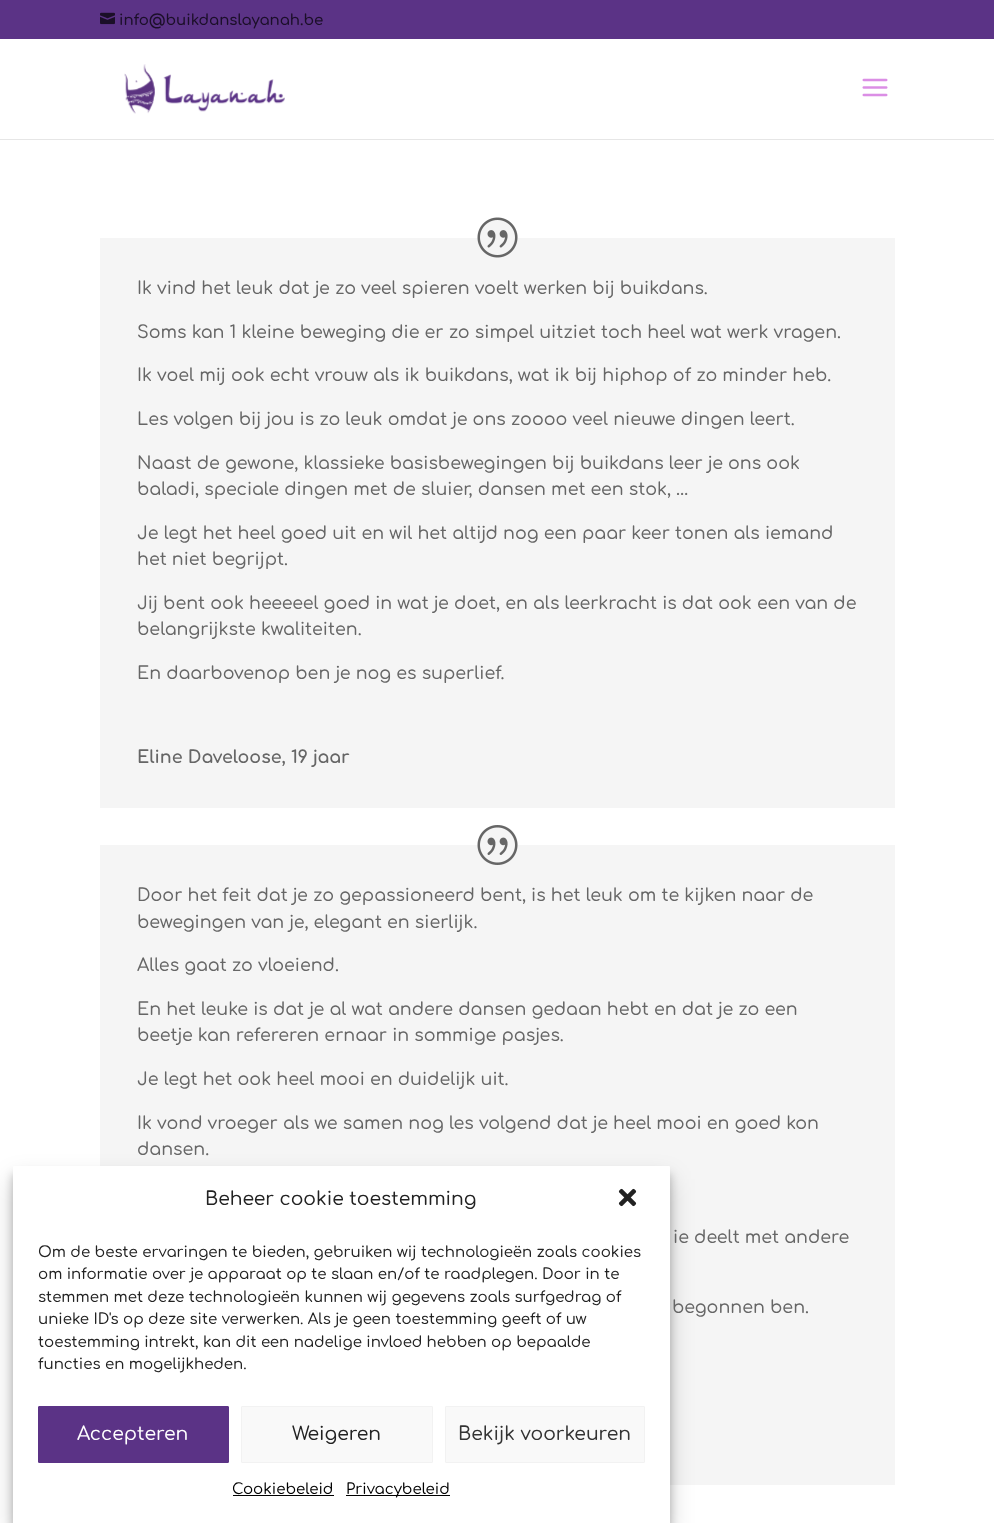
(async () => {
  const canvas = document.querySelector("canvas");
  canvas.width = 994;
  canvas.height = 1523;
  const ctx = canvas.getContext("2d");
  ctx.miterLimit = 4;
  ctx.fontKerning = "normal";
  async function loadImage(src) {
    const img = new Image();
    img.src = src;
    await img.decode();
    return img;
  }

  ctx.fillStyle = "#ffffff";
  ctx.fillRect(0, 0, 994, 1523);
  ctx.fillStyle = "#5b3386";
  ctx.fillRect(0, 0, 994, 39);
  ctx.drawImage(await loadImage("img/1.png"), 100, 12, 15, 13);
  ctx.fillStyle = "#e6e6e6";
  ctx.fillRect(0, 139, 994, 1);
  ctx.drawImage(await loadImage("img/2.png"), 124, 64, 161, 50);
  ctx.drawImage(await loadImage("img/3.png"), 862, 78, 26, 19);
  ctx.fillStyle = "#f5f5f5";
  ctx.fillRect(100, 238, 795, 570);
  ctx.beginPath();
  ctx.arc(498, 238, 20, 0, Math.PI * 2);
  ctx.fill();
  ctx.drawImage(await loadImage("img/4.png"), 477, 217, 41, 41);
  ctx.fillRect(100, 845, 795, 640);
  ctx.beginPath();
  ctx.arc(498, 845, 20, 0, Math.PI * 2);
  ctx.fill();
  ctx.drawImage(await loadImage("img/5.png"), 477, 825, 41, 40);
  ctx.fillStyle = "rgba(0, 0, 0, 0.23)";
  ctx.filter = "blur(4px)";
  ctx.beginPath();
  ctx.roundRect(13, 1174, 657, 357, 1);
  ctx.fill();
  ctx.filter = "none";
  ctx.fillStyle = "rgba(0, 0, 0, 0.19)";
  ctx.filter = "blur(12.5px)";
  ctx.beginPath();
  ctx.roundRect(13, 1179, 657, 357, 1);
  ctx.fill();
  ctx.filter = "none";
  ctx.fillStyle = "#ffffff";
  ctx.beginPath();
  ctx.roundRect(13, 1166, 657, 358, 1);
  ctx.fill();
  ctx.drawImage(await loadImage("img/6.png"), 618, 1188, 19, 19);
  ctx.fillStyle = "#5b3386";
  ctx.beginPath();
  ctx.roundRect(38.5, 1406.5, 190, 56, 0.5);
  ctx.fill();
  ctx.strokeStyle = "#5b3386";
  ctx.stroke();
  ctx.fillStyle = "#f9f9f9";
  ctx.beginPath();
  ctx.roundRect(241.5, 1406.5, 191, 56, 0.5);
  ctx.fill();
  ctx.strokeStyle = "#f2f2f2";
  ctx.stroke();
  ctx.beginPath();
  ctx.roundRect(445.5, 1406.5, 199, 56, 0.5);
  ctx.fill();
  ctx.stroke();
  ctx.fillStyle = "#000000";
  ctx.fillRect(233, 1495, 101, 1);
  ctx.fillRect(346, 1495, 104, 1);
  ctx.font = "600 15px Comfortaa";
  ctx.fillStyle = "#1b0f28";
  ctx.fillText("info@buikdanslayanah.be", 119, 25);
  ctx.font = "500 17.5px Comfortaa";
  ctx.fillStyle = "#666666";
  for (const [text, x, y] of [
    ["Ik vind het leuk dat je zo veel spieren voelt werken bij buikdans.", 137, 294],
    ["Soms kan 1 kleine beweging die er zo simpel uitziet toch heel wat werk vragen.", 137, 338],
    ["Ik voel mij ook echt vrouw als ik buikdans, wat ik bij hiphop of zo minder heb.", 137, 381],
    ["Les volgen bij jou is zo leuk omdat je ons zoooo veel nieuwe dingen leert.", 137, 425],
    ["Naast de gewone, klassieke basisbewegingen bij buikdans leer je ons ook", 137, 469],
    ["baladi, speciale dingen met de sluier, dansen met een stok, …", 137, 495],
    ["Je legt het heel goed uit en wil het altijd nog een paar keer tonen als iemand", 137, 539],
    ["het niet begrijpt.", 137, 565],
    ["Jij bent ook heeeeel goed in wat je doet, en als leerkracht is dat ook een van de", 137, 609],
    ["belangrijkste kwaliteiten.", 137, 635],
    ["En daarbovenop ben je nog es superlief.", 137, 679],
  ]) {
    ctx.fillText(text, x, y);
  }
  ctx.font = "bold 17.5px Comfortaa";
  ctx.fillText("Eline Daveloose, 19 jaar", 137, 763);
  ctx.font = "500 17.5px Comfortaa";
  for (const [text, x, y] of [
    ["Door het feit dat je zo gepassioneerd bent, is het leuk om te kijken naar de", 137, 901],
    ["bewegingen van je, elegant en sierlijk.", 137, 928],
    ["Alles gaat zo vloeiend.", 137, 971],
    ["En het leuke is dat je al wat andere dansen gedaan hebt en dat je zo een", 137, 1015],
    ["beetje kan refereren ernaar in sommige pasjes.", 137, 1041],
    ["Je legt het ook heel mooi en duidelijk uit.", 137, 1085],
    ["Ik vond vroeger als we samen nog les volgend dat je heel mooi en goed kon", 137, 1129],
    ["dansen.", 137, 1155],
    ["ie deelt met andere", 673, 1243],
    ["begonnen ben.", 672, 1313],
  ]) {
    ctx.fillText(text, x, y);
  }
  ctx.font = "500 18.75px Comfortaa";
  ctx.fillStyle = "#222222";
  ctx.fillText("Beheer cookie toestemming", 205, 1205);
  ctx.font = "500 15px Comfortaa";
  for (const [text, x, y] of [
    ["Om de beste ervaringen te bieden, gebruiken wij technologieën zoals cookies", 38, 1257],
    ["om informatie over je apparaat op te slaan en/of te raadplegen. Door in te", 38, 1279],
    ["stemmen met deze technologieën kunnen wij gegevens zoals surfgedrag of", 38, 1302],
    ["unieke ID's op deze site verwerken. Als je geen toestemming geeft of uw", 38, 1324],
    ["toestemming intrekt, kan dit een nadelige invloed hebben op bepaalde", 38, 1347],
    ["functies en mogelijkheden.", 38, 1369],
  ]) {
    ctx.fillText(text, x, y);
  }
  ctx.font = "500 18.75px Comfortaa";
  ctx.fillStyle = "#ffffff";
  ctx.fillText("Accepteren", 77, 1440);
  ctx.fillStyle = "#222222";
  ctx.fillText("Weigeren", 292, 1440);
  ctx.fillStyle = "#333333";
  ctx.fillText("Bekijk voorkeuren", 458, 1440);
  ctx.font = "500 15px Comfortaa";
  ctx.fillStyle = "#000000";
  ctx.fillText("Cookiebeleid", 232, 1494);
  ctx.fillText("Privacybeleid", 346, 1494);
})();
